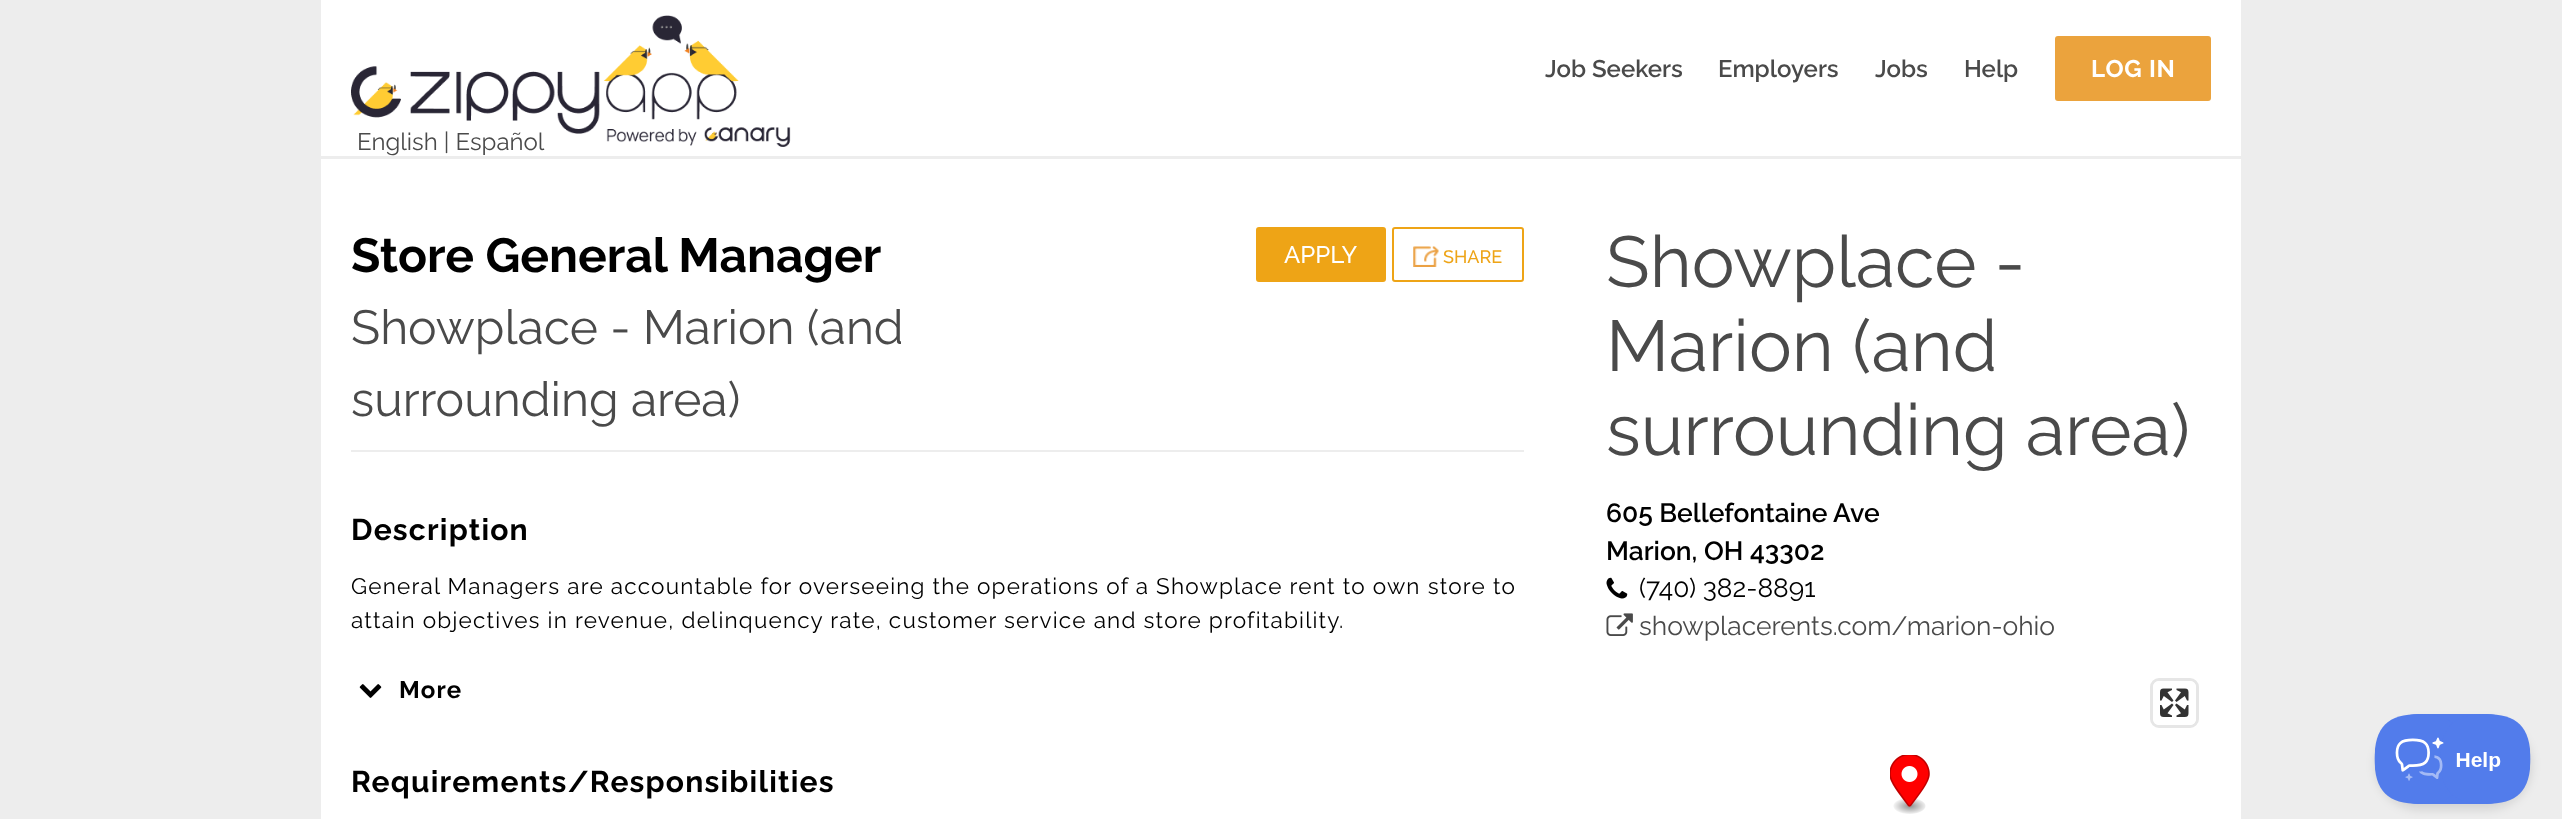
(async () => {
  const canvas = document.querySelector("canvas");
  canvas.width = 2562;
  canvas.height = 819;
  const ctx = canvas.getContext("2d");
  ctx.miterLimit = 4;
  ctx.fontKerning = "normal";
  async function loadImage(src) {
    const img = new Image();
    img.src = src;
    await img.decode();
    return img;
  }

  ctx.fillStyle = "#ededed";
  ctx.fillRect(0, 0, 2562, 819);
  ctx.fillStyle = "#ffffff";
  ctx.fillRect(321, 0, 1920, 156);
  ctx.drawImage(await loadImage("img/1.png"), 351, 15, 440, 132);
  ctx.fillStyle = "#eba33d";
  ctx.beginPath();
  ctx.roundRect(2055, 36, 156, 65, 3);
  ctx.fill();
  ctx.fillStyle = "#ffffff";
  ctx.fillRect(321, 159, 1920, 660);
  ctx.fillStyle = "#ededed";
  ctx.fillRect(351, 450, 1173, 2);
  ctx.fillStyle = "#eea416";
  ctx.beginPath();
  ctx.roundRect(1257, 228, 128, 53, 2);
  ctx.fill();
  ctx.strokeStyle = "#eea416";
  ctx.lineWidth = 2;
  ctx.stroke();
  ctx.beginPath();
  ctx.roundRect(1393, 228, 130, 53, 2);
  ctx.stroke();
  ctx.drawImage(await loadImage("img/2.png"), 1413, 246, 26, 21);
  ctx.drawImage(await loadImage("img/3.png"), 359, 684, 23, 14);
  ctx.drawImage(await loadImage("img/4.png"), 1606, 577, 22, 22);
  ctx.drawImage(await loadImage("img/5.png"), 1606, 613, 27, 23);
  ctx.beginPath();
  ctx.roundRect(2151.5, 679.5, 46, 47, 7.5);
  ctx.strokeStyle = "#e6e6e6";
  ctx.lineWidth = 3;
  ctx.stroke();
  ctx.fillStyle = "#ffffff";
  ctx.beginPath();
  ctx.roundRect(2153, 681, 43, 44, 6);
  ctx.fill();
  ctx.drawImage(await loadImage("img/6.png"), 2160, 688, 29, 29);
  ctx.drawImage(await loadImage("img/7.png"), 1890, 755, 40, 59);
  ctx.fillStyle = "rgba(0, 0, 0, 0.1)";
  ctx.filter = "blur(5px)";
  ctx.beginPath();
  ctx.roundRect(2375, 720, 157, 90, 45);
  ctx.fill();
  ctx.filter = "none";
  ctx.drawImage(await loadImage("img/8.png"), 2374, 714, 157, 90);
  ctx.font = "600 24px Raleway";
  ctx.fillStyle = "#4a4a4a";
  for (const [text, x, y] of [
    ["Job Seekers", 1545, 77],
    ["Employers", 1718, 77],
    ["Jobs", 1875, 77],
    ["Help", 1964, 77],
  ]) {
    ctx.fillText(text, x, y);
  }
  ctx.letterSpacing = "0.75px";
  ctx.font = "bold 24px Raleway";
  ctx.fillStyle = "#ffffff";
  ctx.fillText("LOG IN", 2091, 77);
  ctx.letterSpacing = "0px";
  ctx.font = "24px Raleway";
  ctx.fillStyle = "#4a4a4a";
  ctx.fillText("English | Español", 357, 150);
  ctx.font = "bold 48px Raleway";
  ctx.fillStyle = "#000000";
  ctx.fillText("Store General Manager", 351, 272);
  ctx.font = "48px Raleway";
  ctx.fillStyle = "#4a4a4a";
  ctx.fillText("Showplace - Marion (and", 351, 344);
  ctx.fillText("surrounding area)", 351, 416);
  ctx.font = "500 24px Raleway";
  ctx.fillStyle = "#ffffff";
  ctx.fillText("APPLY", 1284, 263);
  ctx.font = "500 18px Raleway";
  ctx.fillStyle = "#eea416";
  ctx.fillText("SHARE", 1443, 263);
  ctx.letterSpacing = "1.2px";
  ctx.font = "bold 30px Raleway";
  ctx.fillStyle = "#000000";
  ctx.fillText("Description", 351, 540);
  ctx.font = "22.5px Raleway";
  ctx.fillText("General Managers are accountable for overseeing the operations of a Showplace rent to own store to", 351, 594);
  ctx.fillText("attain objectives in revenue, delinquency rate, customer service and store profitability.", 351, 628);
  ctx.font = "bold 24px Raleway";
  ctx.fillText("More", 399, 698);
  ctx.font = "bold 30px Raleway";
  ctx.fillText("Requirements/Responsibilities", 351, 792);
  ctx.letterSpacing = "0px";
  ctx.font = "72px Raleway";
  ctx.fillStyle = "#4a4a4a";
  for (const [text, x, y] of [
    ["Showplace -", 1606, 287],
    ["Marion (and", 1606, 371],
    ["surrounding area)", 1606, 455],
  ]) {
    ctx.fillText(text, x, y);
  }
  ctx.font = "600 26.4px Raleway";
  ctx.fillStyle = "#000000";
  ctx.fillText("605 Bellefontaine Ave", 1606, 522);
  ctx.fillText("Marion, OH 43302", 1606, 560);
  ctx.font = "26.4px Raleway";
  ctx.fillText("(740) 382-8891", 1639, 597);
  ctx.fillStyle = "#4a4a4a";
  ctx.fillText("showplacerents.com/marion-ohio", 1639, 635);
})();
